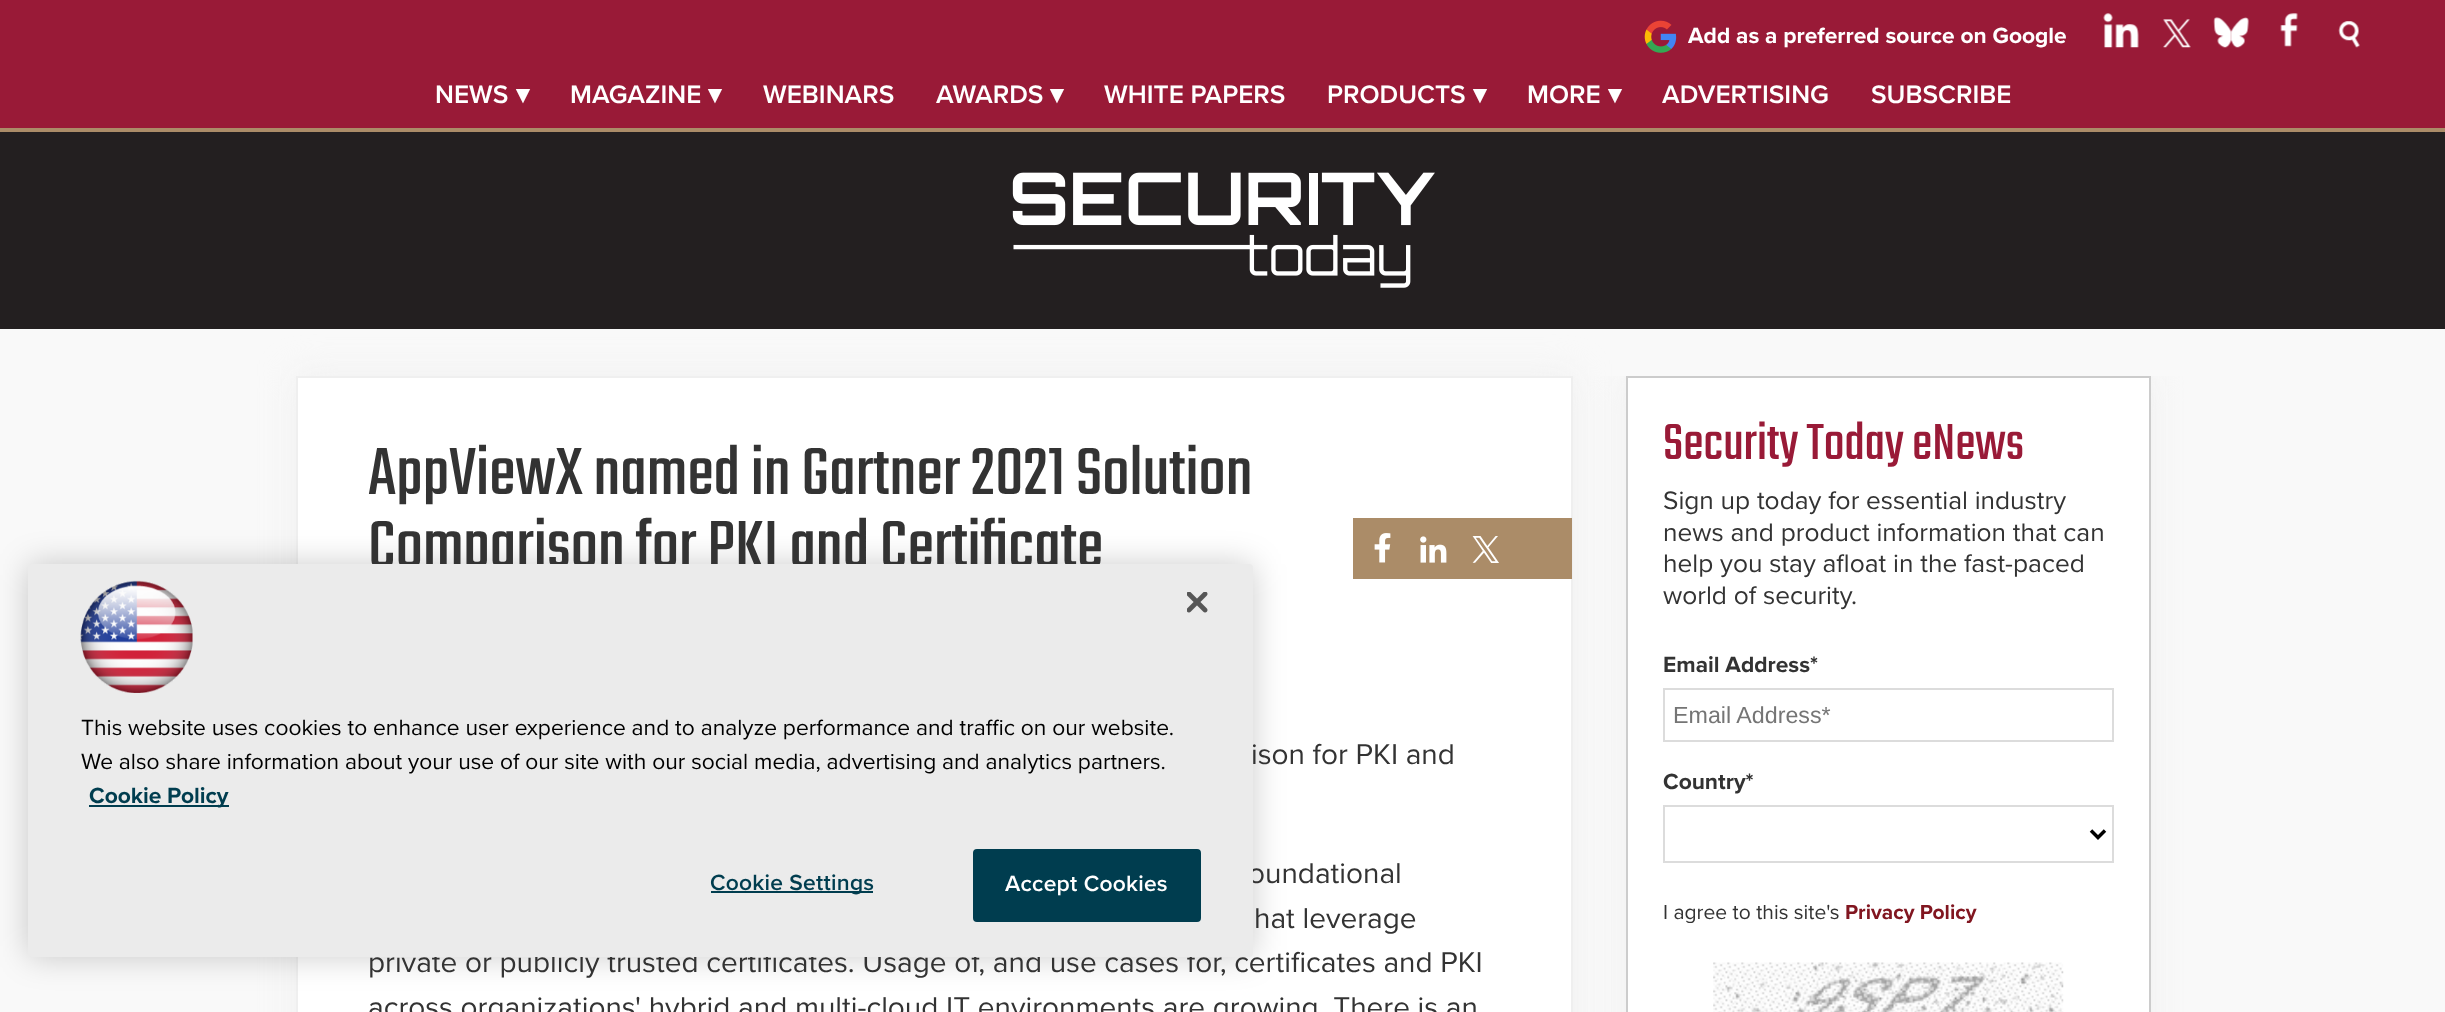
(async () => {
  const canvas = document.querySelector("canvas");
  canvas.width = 2445;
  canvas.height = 1012;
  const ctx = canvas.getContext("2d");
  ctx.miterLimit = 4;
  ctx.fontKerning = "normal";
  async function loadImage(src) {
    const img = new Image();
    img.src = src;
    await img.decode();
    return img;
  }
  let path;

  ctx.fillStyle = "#f9f9f9";
  ctx.fillRect(0, 0, 2445, 1012);
  ctx.fillStyle = "#991a37";
  ctx.fillRect(0, 0, 2445, 128);
  ctx.drawImage(await loadImage("img/1.png"), 1644, 20, 33, 33);
  ctx.drawImage(await loadImage("img/2.png"), 2103, 13, 36, 35);
  ctx.drawImage(await loadImage("img/3.png"), 2163, 19, 28, 29);
  ctx.drawImage(await loadImage("img/4.png"), 2213, 17, 36, 31);
  ctx.drawImage(await loadImage("img/5.png"), 2280, 13, 18, 34);
  ctx.drawImage(await loadImage("img/6.png"), 2338, 21, 22, 27);
  ctx.fillStyle = "#ab8c68";
  ctx.fillRect(0, 128, 2445, 4);
  ctx.save();
  ctx.beginPath();
  ctx.rect(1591, 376, 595, 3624);
  ctx.clip();
  ctx.fillStyle = "#efefef";
  ctx.filter = "blur(17.5px)";
  ctx.beginPath();
  ctx.rect(1626, 376, 525, 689);
  ctx.fill();
  ctx.filter = "none";
  ctx.restore();
  ctx.fillStyle = "#ffffff";
  ctx.beginPath();
  ctx.rect(1627, 377, 523, 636);
  ctx.fill();
  ctx.strokeStyle = "#cccccc";
  ctx.lineWidth = 2;
  ctx.stroke();
  ctx.fillStyle = "#efefef";
  ctx.filter = "blur(17.5px)";
  ctx.beginPath();
  ctx.rect(296, 376, 1277, 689);
  ctx.fill();
  ctx.filter = "none";
  ctx.fillStyle = "#231f20";
  ctx.fillRect(0, 132, 2445, 197);
  ctx.drawImage(await loadImage("img/7.png"), 1012, 172, 423, 116);
  ctx.fillStyle = "#ffffff";
  ctx.beginPath();
  ctx.rect(297, 377, 1275, 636);
  ctx.fill();
  ctx.strokeStyle = "#efefef";
  ctx.stroke();
  ctx.fillStyle = "#ab8c68";
  ctx.fillRect(1353, 518, 219, 61);
  ctx.drawImage(await loadImage("img/8.png"), 1374, 533, 17, 30);
  ctx.drawImage(await loadImage("img/9.png"), 1420, 536, 27, 27);
  ctx.drawImage(await loadImage("img/10.png"), 1472, 536, 27, 27);
  ctx.strokeStyle = "#dcdcdc";
  ctx.strokeRect(1664, 689, 449, 52);
  ctx.strokeRect(1664, 806, 449, 56);
  path = new Path2D("M2091 830.5L2098 837.5L2105 830.5");
  ctx.strokeStyle = "#000000";
  ctx.lineWidth = 3.5;
  ctx.stroke(path);
  ctx.drawImage(await loadImage("img/11.png"), 1713, 962, 351, 50);
  ctx.fillStyle = "rgba(0, 0, 0, 0.2)";
  ctx.filter = "blur(16px)";
  ctx.beginPath();
  ctx.roundRect(28, 564, 1225, 393, 4);
  ctx.fill();
  ctx.filter = "none";
  ctx.font = "bold 22.75px Proxima Nova";
  ctx.fillStyle = "#ffffff";
  ctx.fillText("Add as a preferred source on Google", 1688, 43);
  ctx.font = "600 26.25px Proxima Nova";
  ctx.fillText("NEWS", 435, 103);
  ctx.font = "bold 26.25px DejaVu Sans";
  ctx.fillText("▾", 516, 103);
  ctx.font = "600 26.25px Proxima Nova";
  ctx.fillText("MAGAZINE", 570, 103);
  ctx.font = "bold 26.25px DejaVu Sans";
  ctx.fillText("▾", 708, 103);
  ctx.font = "600 26.25px Proxima Nova";
  ctx.fillText("WEBINARS", 763, 103);
  ctx.fillText("AWARDS", 936, 103);
  ctx.font = "bold 26.25px DejaVu Sans";
  ctx.fillText("▾", 1050, 103);
  ctx.font = "600 26.25px Proxima Nova";
  ctx.fillText("WHITE PAPERS", 1104, 103);
  ctx.fillText("PRODUCTS", 1327, 103);
  ctx.font = "bold 26.25px DejaVu Sans";
  ctx.fillText("▾", 1473, 103);
  ctx.font = "600 26.25px Proxima Nova";
  ctx.fillText("MORE", 1527, 103);
  ctx.font = "bold 26.25px DejaVu Sans";
  ctx.fillText("▾", 1608, 103);
  ctx.font = "600 26.25px Proxima Nova";
  ctx.fillText("ADVERTISING", 1662, 103);
  ctx.fillText("SUBSCRIBE", 1871, 103);
  ctx.font = "300 73.5px Teko";
  ctx.fillStyle = "#333333";
  ctx.fillText("AppViewX named in Gartner 2021 Solution", 368, 494);
  ctx.fillText("Comparison for PKI and Certificate", 368, 567);
  ctx.font = "29.75px Proxima Nova";
  for (const [text, x, y] of [
    ["ison for PKI and", 1251, 764],
    ["oundational", 1248, 883],
    ["hat leverage", 1254, 928],
    ["private or publicly trusted certificates. Usage of, and use cases for, certificates and PKI", 368, 972],
    ["across organizations' hybrid and multi-cloud IT environments are growing. There is an", 368, 1017],
  ]) {
    ctx.fillText(text, x, y);
  }
  ctx.font = "300 56px Teko";
  ctx.fillStyle = "#991a37";
  ctx.fillText("Security Today eNews", 1663, 459);
  ctx.font = "26.25px Proxima Nova";
  ctx.fillStyle = "#333333";
  for (const [text, x, y] of [
    ["Sign up today for essential industry", 1663, 509],
    ["news and product information that can", 1663, 541],
    ["help you stay afloat in the fast-paced", 1663, 572],
    ["world of security.", 1663, 604],
  ]) {
    ctx.fillText(text, x, y);
  }
  ctx.font = "bold 22.75px Proxima Nova";
  ctx.fillText("Email Address*", 1663, 672);
  ctx.font = "23.25px Liberation Sans";
  ctx.fillStyle = "#757575";
  ctx.fillText("Email Address*", 1673, 723);
  ctx.font = "bold 22.75px Proxima Nova";
  ctx.fillStyle = "#333333";
  ctx.fillText("Country*", 1663, 789);
  ctx.font = "21px Proxima Nova";
  ctx.fillText("I agree to this site's", 1663, 919);
  ctx.font = "bold 21px Proxima Nova";
  ctx.fillStyle = "#811620";
  ctx.fillText("Privacy Policy", 1845, 919);
  ctx.fillStyle = "#ebebeb";
  ctx.beginPath();
  ctx.roundRect(28, 564, 1225, 393, 4);
  ctx.fill();
  ctx.drawImage(await loadImage("img/12.png"), 1187, 592, 21, 21);
  ctx.drawImage(await loadImage("img/13.png"), 80, 580, 113, 113);
  ctx.font = "22.75px Proxima Nova";
  ctx.fillStyle = "#000000";
  ctx.fillText("This website uses cookies to enhance user experience and to analyze performance and traffic on our website.", 81, 735);
  ctx.fillText("We also share information about your use of our site with our social media, advertising and analytics partners.", 81, 769);
  ctx.fillStyle = "#003d4f";
  ctx.fillRect(89, 805, 140, 2);
  ctx.font = "bold 22.75px Proxima Nova";
  ctx.fillText("Cookie Policy", 89, 803);
  ctx.fillRect(711, 891, 162, 2);
  ctx.letterSpacing = "0.25px";
  ctx.font = "600 22.75px Proxima Nova";
  ctx.fillText("Cookie Settings", 710, 890);
  ctx.beginPath();
  ctx.roundRect(974, 850, 226, 71, 3);
  ctx.fill();
  ctx.strokeStyle = "#003d4f";
  ctx.lineWidth = 2;
  ctx.stroke();
  ctx.fillStyle = "#ffffff";
  ctx.fillText("Accept Cookies", 1005, 891);
})();
